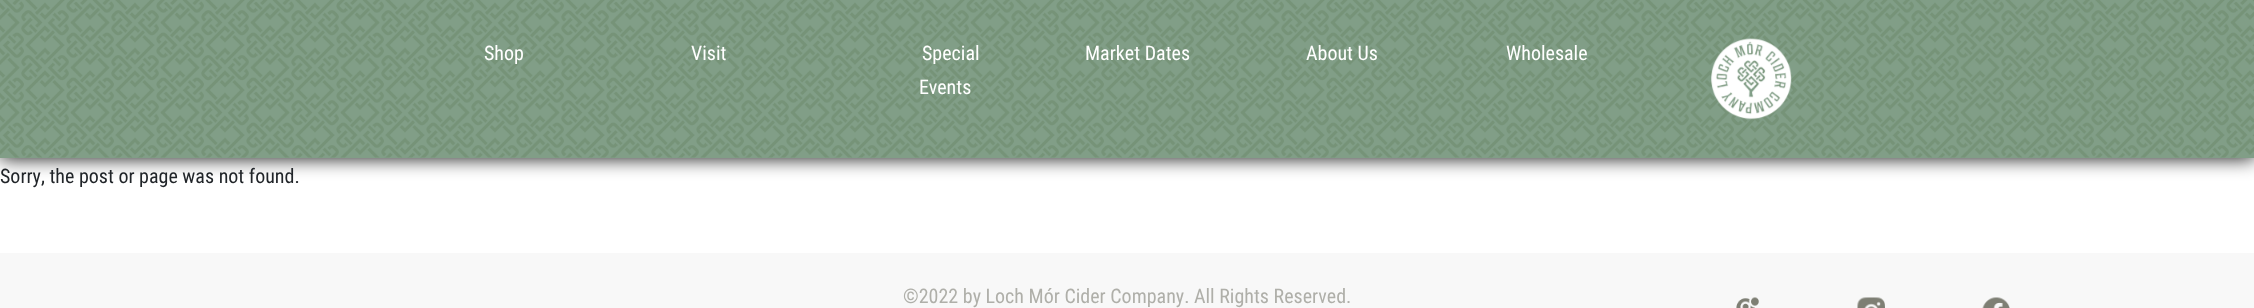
(async () => {
  const canvas = document.querySelector("canvas");
  canvas.width = 2254;
  canvas.height = 308;
  const ctx = canvas.getContext("2d");
  ctx.miterLimit = 4;
  ctx.fontKerning = "normal";
  async function loadImage(src) {
    const img = new Image();
    img.src = src;
    await img.decode();
    return img;
  }

  ctx.fillStyle = "#ffffff";
  ctx.fillRect(0, 0, 2254, 308);
  ctx.fillStyle = "rgba(0, 0, 0, 0.95)";
  ctx.filter = "blur(9.5px)";
  ctx.beginPath();
  ctx.rect(0, 0, 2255, 158);
  ctx.fill();
  ctx.filter = "none";
  ctx.fillStyle = "#819e87";
  ctx.fillRect(0, 0, 2254, 158);
  ctx.drawImage(await loadImage("img/1.png"), 0, 0, 2254, 158);
  ctx.drawImage(await loadImage("img/2.png"), 1711, 38, 81, 82);
  ctx.fillStyle = "#f8f8f8";
  ctx.fillRect(0, 253, 2254, 55);
  ctx.drawImage(await loadImage("img/3.png"), 1736, 297, 23, 11);
  ctx.drawImage(await loadImage("img/4.png"), 1857, 297, 28, 11);
  ctx.drawImage(await loadImage("img/5.png"), 1982, 297, 28, 11);
  ctx.font = "20px Roboto Condensed";
  ctx.fillStyle = "#ffffff";
  for (const [text, x, y] of [
    ["Shop", 484, 60],
    ["Visit", 691, 60],
    ["Special", 922, 60],
    ["Events", 919, 94],
    ["Market Dates", 1085, 60],
    ["About Us", 1306, 60],
    ["Wholesale", 1506, 60],
  ]) {
    ctx.fillText(text, x, y);
  }
  ctx.fillStyle = "#212529";
  ctx.fillText("Sorry, the post or page was not found.", 0, 183);
  ctx.fillStyle = "#afafa9";
  ctx.fillText("©2022 by Loch Mór Cider Company. All Rights Reserved.", 903, 303);
})();
